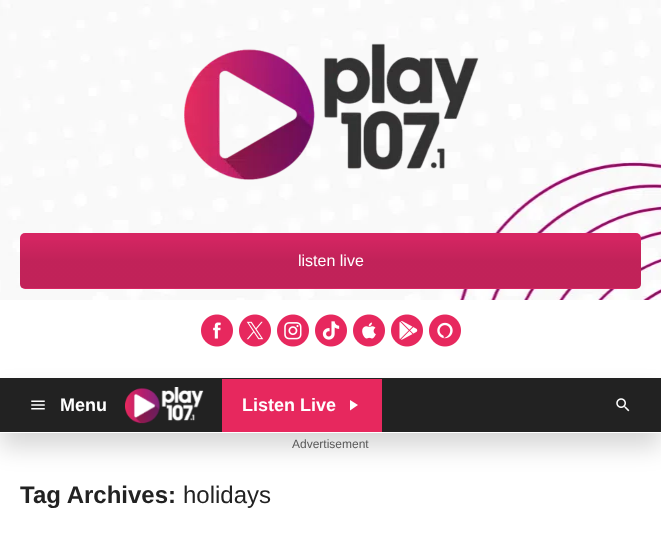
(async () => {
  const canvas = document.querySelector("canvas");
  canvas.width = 661;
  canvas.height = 550;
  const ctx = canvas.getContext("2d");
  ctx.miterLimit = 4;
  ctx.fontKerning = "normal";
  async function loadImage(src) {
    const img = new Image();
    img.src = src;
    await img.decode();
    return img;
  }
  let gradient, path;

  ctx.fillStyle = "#ffffff";
  ctx.fillRect(0, 0, 661, 550);
  ctx.drawImage(await loadImage("img/1.png"), 0, 0, 661, 300);
  ctx.fillStyle = "#222222";
  ctx.fillRect(0, 378, 661, 1);
  ctx.drawImage(await loadImage("img/2.png"), 184, 43, 295, 137);
  ctx.fillStyle = "#d72663";
  ctx.beginPath();
  ctx.roundRect(20, 233, 621, 56, 5);
  ctx.fill();
  ctx.save();
  ctx.beginPath();
  ctx.roundRect(20, 233, 621, 56, 5);
  ctx.clip();
  gradient = ctx.createLinearGradient(640, 234, 640, 288);
  gradient.addColorStop(0, "rgba(0, 0, 0, 0)");
  gradient.addColorStop(0.5, "rgba(0, 0, 0, 0.1)");
  gradient.addColorStop(1, "rgba(0, 0, 0, 0.1)");
  ctx.fillStyle = gradient;
  ctx.fillRect(20, 240, 621, 48);
  ctx.restore();
  ctx.drawImage(await loadImage("img/3.png"), 201, 314, 32, 33);
  ctx.drawImage(await loadImage("img/4.png"), 239, 314, 32, 33);
  ctx.drawImage(await loadImage("img/5.png"), 277, 314, 32, 33);
  ctx.drawImage(await loadImage("img/6.png"), 315, 314, 32, 33);
  ctx.drawImage(await loadImage("img/7.png"), 353, 314, 32, 33);
  ctx.drawImage(await loadImage("img/8.png"), 391, 314, 32, 33);
  ctx.drawImage(await loadImage("img/9.png"), 429, 314, 32, 33);
  ctx.fillStyle = "rgba(0, 0, 0, 0.16)";
  ctx.filter = "blur(12.5px)";
  ctx.beginPath();
  ctx.rect(0, 393, 661, 54);
  ctx.fill();
  ctx.filter = "none";
  ctx.fillStyle = "#222222";
  ctx.fillRect(0, 379, 661, 53);
  ctx.fillStyle = "#ffffff";
  ctx.fillRect(0, 432, 661, 1);
  ctx.drawImage(await loadImage("img/10.png"), 31, 400, 14, 10);
  ctx.drawImage(await loadImage("img/11.png"), 125, 387, 79, 37);
  ctx.fillStyle = "#e7285e";
  ctx.fillRect(222, 379, 160, 53);
  ctx.fillStyle = "#ffffff";
  path = new Path2D("M350 400V410.5L358 405Z");
  ctx.fill(path);
  ctx.drawImage(await loadImage("img/12.png"), 616, 398, 14, 14);
  ctx.font = "16px Liberation Sans";
  ctx.fillText("listen live", 298, 266);
  ctx.font = "bold 18px Liberation Sans";
  ctx.fillText("Menu", 60, 411);
  ctx.fillText("Listen Live", 242, 411);
  ctx.font = "12px Liberation Sans";
  ctx.fillStyle = "#595959";
  ctx.fillText("Advertisement", 292, 448);
  ctx.font = "bold 24px Liberation Sans";
  ctx.fillStyle = "#222222";
  ctx.fillText("Tag Archives:", 20, 503);
  ctx.font = "24px Liberation Sans";
  ctx.fillText("holidays", 183, 503);
})();
